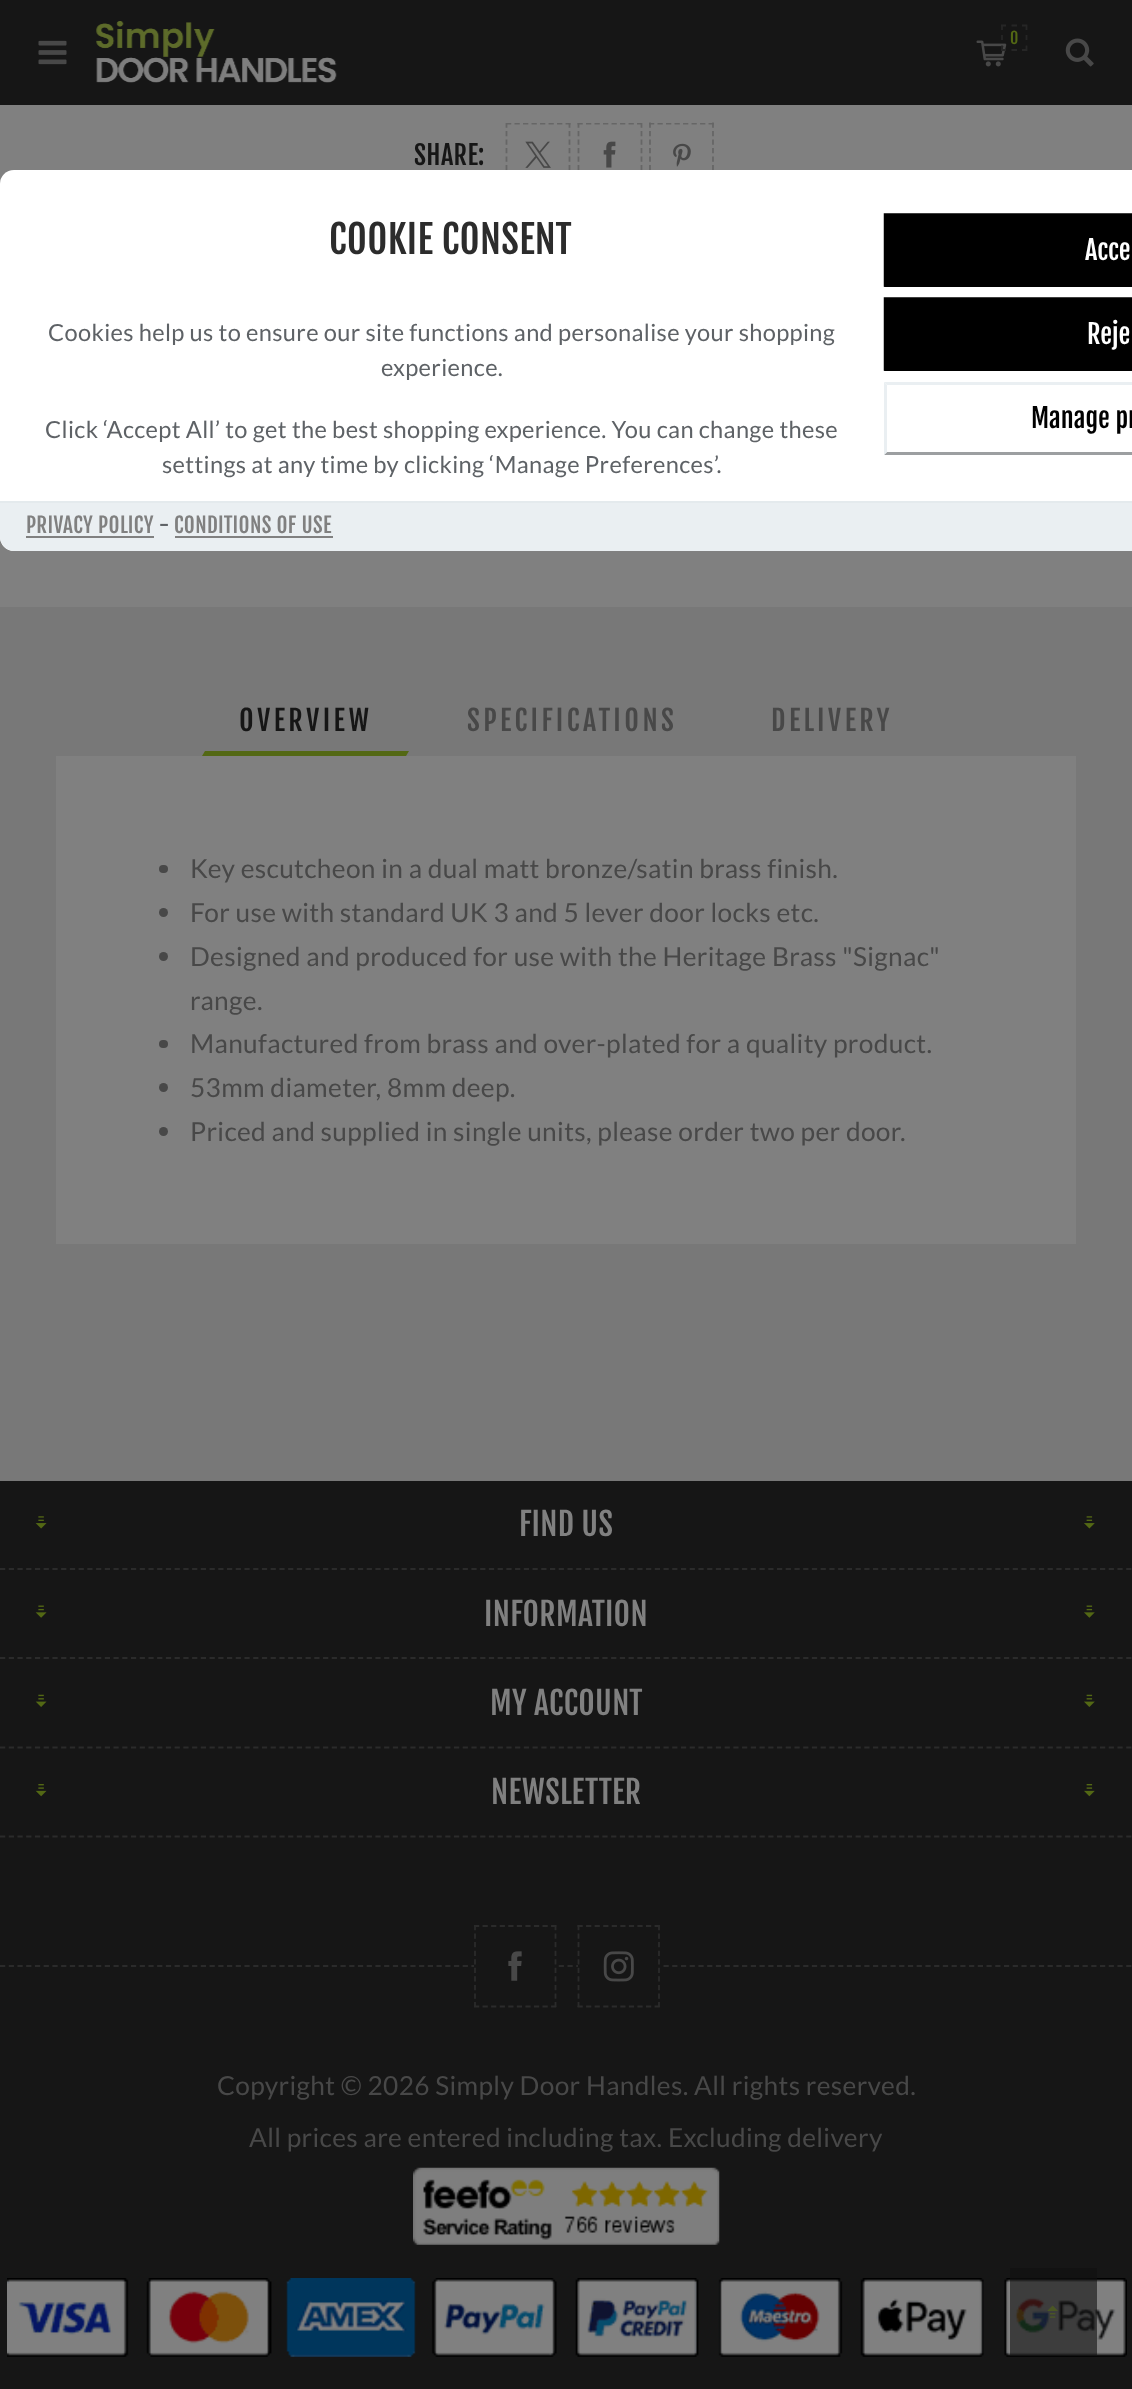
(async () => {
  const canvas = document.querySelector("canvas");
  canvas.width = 1132;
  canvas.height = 2389;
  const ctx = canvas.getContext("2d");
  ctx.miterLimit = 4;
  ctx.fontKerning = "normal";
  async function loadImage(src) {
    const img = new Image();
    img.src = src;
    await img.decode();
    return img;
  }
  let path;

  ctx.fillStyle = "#787878";
  ctx.fillRect(0, 0, 1132, 2389);
  ctx.fillStyle = "#161616";
  ctx.fillRect(0, 0, 1132, 105);
  ctx.drawImage(await loadImage("img/1.png"), 38, 40, 29, 25);
  ctx.drawImage(await loadImage("img/2.png"), 96, 21, 241, 62);
  ctx.drawImage(await loadImage("img/3.png"), 976, 40, 31, 27);
  path = new Path2D("M1001 25.5H1006M1011.5 25.5H1017M1022 25.5H1027M1026.5 24.5V30M1026.5 35V40M1026.5 45.5V51M1001 50H1006M1011.5 50H1017M1022 50H1027M1002 24.5V30M1002 35V40M1002 45.5V51");
  ctx.strokeStyle = "#262626";
  ctx.lineWidth = 1.8;
  ctx.stroke(path);
  ctx.drawImage(await loadImage("img/4.png"), 1065, 38, 29, 29);
  ctx.fillStyle = "#808080";
  ctx.fillRect(0, 105, 1132, 502);
  ctx.save();
  ctx.beginPath();
  ctx.rect(502, 123, 216, 68);
  ctx.clip();
  path = new Path2D("M506 123.5H570.5");
  ctx.strokeStyle = "#666666";
  ctx.setLineDash([5.25, 3.26]);
  ctx.stroke(path);
  path = new Path2D("M569.5 122.5V187");
  ctx.stroke(path);
  path = new Path2D("M506.5 122.5V187");
  ctx.stroke(path);
  ctx.restore();
  ctx.drawImage(await loadImage("img/5.png"), 525, 141, 26, 27);
  ctx.save();
  ctx.beginPath();
  ctx.rect(502, 123, 216, 68);
  ctx.clip();
  path = new Path2D("M577.5 123.5H642");
  ctx.strokeStyle = "#666666";
  ctx.setLineDash([5.25, 3.26]);
  ctx.stroke(path);
  path = new Path2D("M641.5 122.5V187");
  ctx.stroke(path);
  path = new Path2D("M578.5 122.5V187");
  ctx.stroke(path);
  ctx.restore();
  ctx.drawImage(await loadImage("img/6.png"), 603, 141, 13, 27);
  ctx.save();
  ctx.beginPath();
  ctx.rect(502, 123, 216, 68);
  ctx.clip();
  path = new Path2D("M649 123.5H714");
  ctx.strokeStyle = "#666666";
  ctx.setLineDash([5.25, 3.26]);
  ctx.stroke(path);
  ctx.restore();
  path = new Path2D("M713 122.5V187");
  ctx.strokeStyle = "#666666";
  ctx.setLineDash([5.25, 3.26]);
  ctx.stroke(path);
  path = new Path2D("M650 122.5V187");
  ctx.stroke(path);
  ctx.drawImage(await loadImage("img/7.png"), 673, 143, 18, 24);
  ctx.fillStyle = "#536814";
  path = new Path2D("M205 751H409L406 756H202Z");
  ctx.fill(path);
  ctx.fillStyle = "#808080";
  ctx.fillRect(56, 756, 1020, 488);
  ctx.fillStyle = "#484848";
  ctx.beginPath();
  ctx.roundRect(159, 865, 9, 8, 4);
  ctx.fill();
  ctx.beginPath();
  ctx.arc(163.5, 912.5, 4.5, 0, Math.PI * 2);
  ctx.fill();
  ctx.beginPath();
  ctx.arc(163.5, 956.5, 4.5, 0, Math.PI * 2);
  ctx.fill();
  ctx.beginPath();
  ctx.roundRect(159, 1040, 9, 8, 4);
  ctx.fill();
  ctx.beginPath();
  ctx.arc(163.5, 1087.5, 4.5, 0, Math.PI * 2);
  ctx.fill();
  ctx.beginPath();
  ctx.arc(163.5, 1131.5, 4.5, 0, Math.PI * 2);
  ctx.fill();
  ctx.fillStyle = "#161616";
  ctx.fillRect(0, 1481, 1132, 908);
  ctx.drawImage(await loadImage("img/8.png"), 35, 1516, 12, 13);
  ctx.drawImage(await loadImage("img/9.png"), 1084, 1516, 11, 13);
  path = new Path2D("M0 1569H1132");
  ctx.strokeStyle = "#2b2b2b";
  ctx.setLineDash([5.25, 3.48]);
  ctx.stroke(path);
  ctx.drawImage(await loadImage("img/10.png"), 35, 1605, 12, 13);
  ctx.drawImage(await loadImage("img/11.png"), 1084, 1605, 11, 13);
  path = new Path2D("M0 1658H1132");
  ctx.stroke(path);
  ctx.drawImage(await loadImage("img/12.png"), 35, 1694, 12, 13);
  ctx.drawImage(await loadImage("img/13.png"), 1084, 1694, 11, 13);
  path = new Path2D("M0 1836.5H1132");
  ctx.stroke(path);
  path = new Path2D("M0 1747.5H1132");
  ctx.stroke(path);
  ctx.drawImage(await loadImage("img/14.png"), 35, 1784, 12, 13);
  ctx.drawImage(await loadImage("img/15.png"), 1084, 1784, 11, 13);
  path = new Path2D("M0 1966H1132");
  ctx.stroke(path);
  ctx.fillRect(474, 1965, 82, 2);
  path = new Path2D("M474 1926H556.5");
  ctx.setLineDash([5.25, 3.31]);
  ctx.stroke(path);
  path = new Path2D("M555.5 1925V2007");
  ctx.stroke(path);
  path = new Path2D("M474 2006.5H556.5");
  ctx.stroke(path);
  path = new Path2D("M475 1925V2007");
  ctx.stroke(path);
  ctx.drawImage(await loadImage("img/16.png"), 508, 1951, 14, 30);
  ctx.fillRect(578, 1965, 82, 2);
  path = new Path2D("M577.5 1926H660");
  ctx.stroke(path);
  path = new Path2D("M659 1925V2007");
  ctx.stroke(path);
  path = new Path2D("M577.5 2006.5H660");
  ctx.stroke(path);
  path = new Path2D("M578.5 1925V2007");
  ctx.stroke(path);
  ctx.drawImage(await loadImage("img/17.png"), 603, 1951, 31, 31);
  ctx.drawImage(await loadImage("img/18.png"), 413, 2167, 307, 78);
  ctx.drawImage(await loadImage("img/19.png"), 7, 2278, 1120, 79);
  ctx.fillStyle = "#ffffff";
  ctx.beginPath();
  ctx.roundRect(0, 170, 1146, 381, 14);
  ctx.fill();
  ctx.fillStyle = "#000000";
  ctx.beginPath();
  ctx.roundRect(884, 214, 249, 73, 1);
  ctx.fill();
  path = new Path2D("M885.5 215H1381V285H885.5Z");
  ctx.strokeStyle = "#000000";
  ctx.lineWidth = 3.5;
  ctx.setLineDash([]);
  ctx.stroke(path);
  ctx.beginPath();
  ctx.roundRect(884, 298, 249, 73, 1);
  ctx.fill();
  path = new Path2D("M885.5 299H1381V369H885.5Z");
  ctx.stroke(path);
  ctx.fillStyle = "#eaeff2";
  path = new Path2D("M885 382H884L887 385H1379L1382 382H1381Z");
  ctx.fill(path);
  ctx.fillStyle = "#9c9fa1";
  path = new Path2D("M885 455H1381L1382 454L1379 452H887L884 455Z");
  ctx.fill(path);
  ctx.fillStyle = "#eaeff2";
  path = new Path2D("M887 385L884 382V455L887 452Z");
  ctx.fill(path);
  path = new Path2D("M0 501H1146V537C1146 544.5 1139.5 551 1132 551H14C6.5 551 0 544.5 0 537Z");
  ctx.fill(path);
  for (const [x, y, w, h, color] of [
    [0, 501, 1132, 2, "#e4eaed"],
    [26, 536, 128, 2, "#808080"],
    [175, 536, 158, 2, "#808080"],
    [1010, 2268, 87, 87, "rgba(16, 16, 16, 0.6)"],
  ]) {
    ctx.fillStyle = color;
    ctx.fillRect(x, y, w, h);
  }
  ctx.drawImage(await loadImage("img/20.png"), 1047, 2305, 11, 13);
  ctx.letterSpacing = "0.35px";
  ctx.font = "16px Fjalla One";
  ctx.fillStyle = "#536814";
  ctx.fillText("0", 1010, 44);
  ctx.font = "26.25px Fjalla One";
  ctx.fillStyle = "#161616";
  ctx.fillText("SHARE:", 414, 165);
  ctx.letterSpacing = "3.5px";
  ctx.font = "28px Fjalla One";
  ctx.fillText("OVERVIEW", 239, 731);
  ctx.fillStyle = "#484848";
  ctx.fillText("SPECIFICATIONS", 467, 731);
  ctx.fillText("DELIVERY", 771, 731);
  ctx.letterSpacing = "0.35px";
  ctx.font = "26.25px Lato";
  for (const [text, x, y] of [
    ["Key escutcheon in a dual matt bronze/satin brass finish.", 190, 878],
    ["For use with standard UK 3 and 5 lever door locks etc.", 190, 922],
    ["Designed and produced for use with the Heritage Brass \"Signac\"", 190, 966],
    ["range.", 190, 1010],
    ["Manufactured from brass and over-plated for a quality product.", 190, 1053],
    ["53mm diameter, 8mm deep.", 190, 1097],
    ["Priced and supplied in single units, please order two per door.", 190, 1141],
  ]) {
    ctx.fillText(text, x, y);
  }
  ctx.font = "31.5px Fjalla One";
  ctx.fillStyle = "#808080";
  for (const [text, x, y] of [
    ["FIND US", 519, 1536],
    ["INFORMATION", 484, 1626],
    ["MY ACCOUNT", 490, 1715],
    ["NEWSLETTER", 491, 1804],
  ]) {
    ctx.fillText(text, x, y);
  }
  ctx.font = "26.25px Lato";
  ctx.fillStyle = "#484848";
  ctx.fillText("Copyright © 2026 Simply Door Handles. All rights reserved.", 217, 2095);
  ctx.fillText("All prices are entered including tax. Excluding delivery", 249, 2147);
  ctx.font = "38.5px Fjalla One";
  ctx.fillStyle = "#2c2c2c";
  ctx.fillText("COOKIE CONSENT", 329, 254);
  ctx.font = "23.6px Lato";
  ctx.fillStyle = "#5e6266";
  for (const [text, x, y] of [
    ["Cookies help us to ensure our site functions and personalise your shopping", 48, 341],
    ["experience.", 381, 376],
    ["Click ‘Accept All’ to get the best shopping experience. You can change these", 45, 438],
    ["settings at any time by clicking ‘Manage Preferences’.", 162, 473],
  ]) {
    ctx.fillText(text, x, y);
  }
  ctx.letterSpacing = "0px";
  ctx.font = "26.25px Fjalla One";
  ctx.fillStyle = "#ffffff";
  ctx.fillText("Acce", 1085, 260);
  ctx.fillText("Reje", 1087, 344);
  ctx.fillStyle = "#000000";
  ctx.fillText("Manage pr", 1031, 428);
  ctx.letterSpacing = "0.35px";
  ctx.font = "21px Fjalla One";
  ctx.fillStyle = "#808080";
  ctx.fillText("PRIVACY POLICY", 26, 533);
  ctx.fillStyle = "#5e6266";
  ctx.fillText("-", 159, 533);
  ctx.fillStyle = "#808080";
  ctx.fillText("CONDITIONS OF USE", 174, 533);
})();
